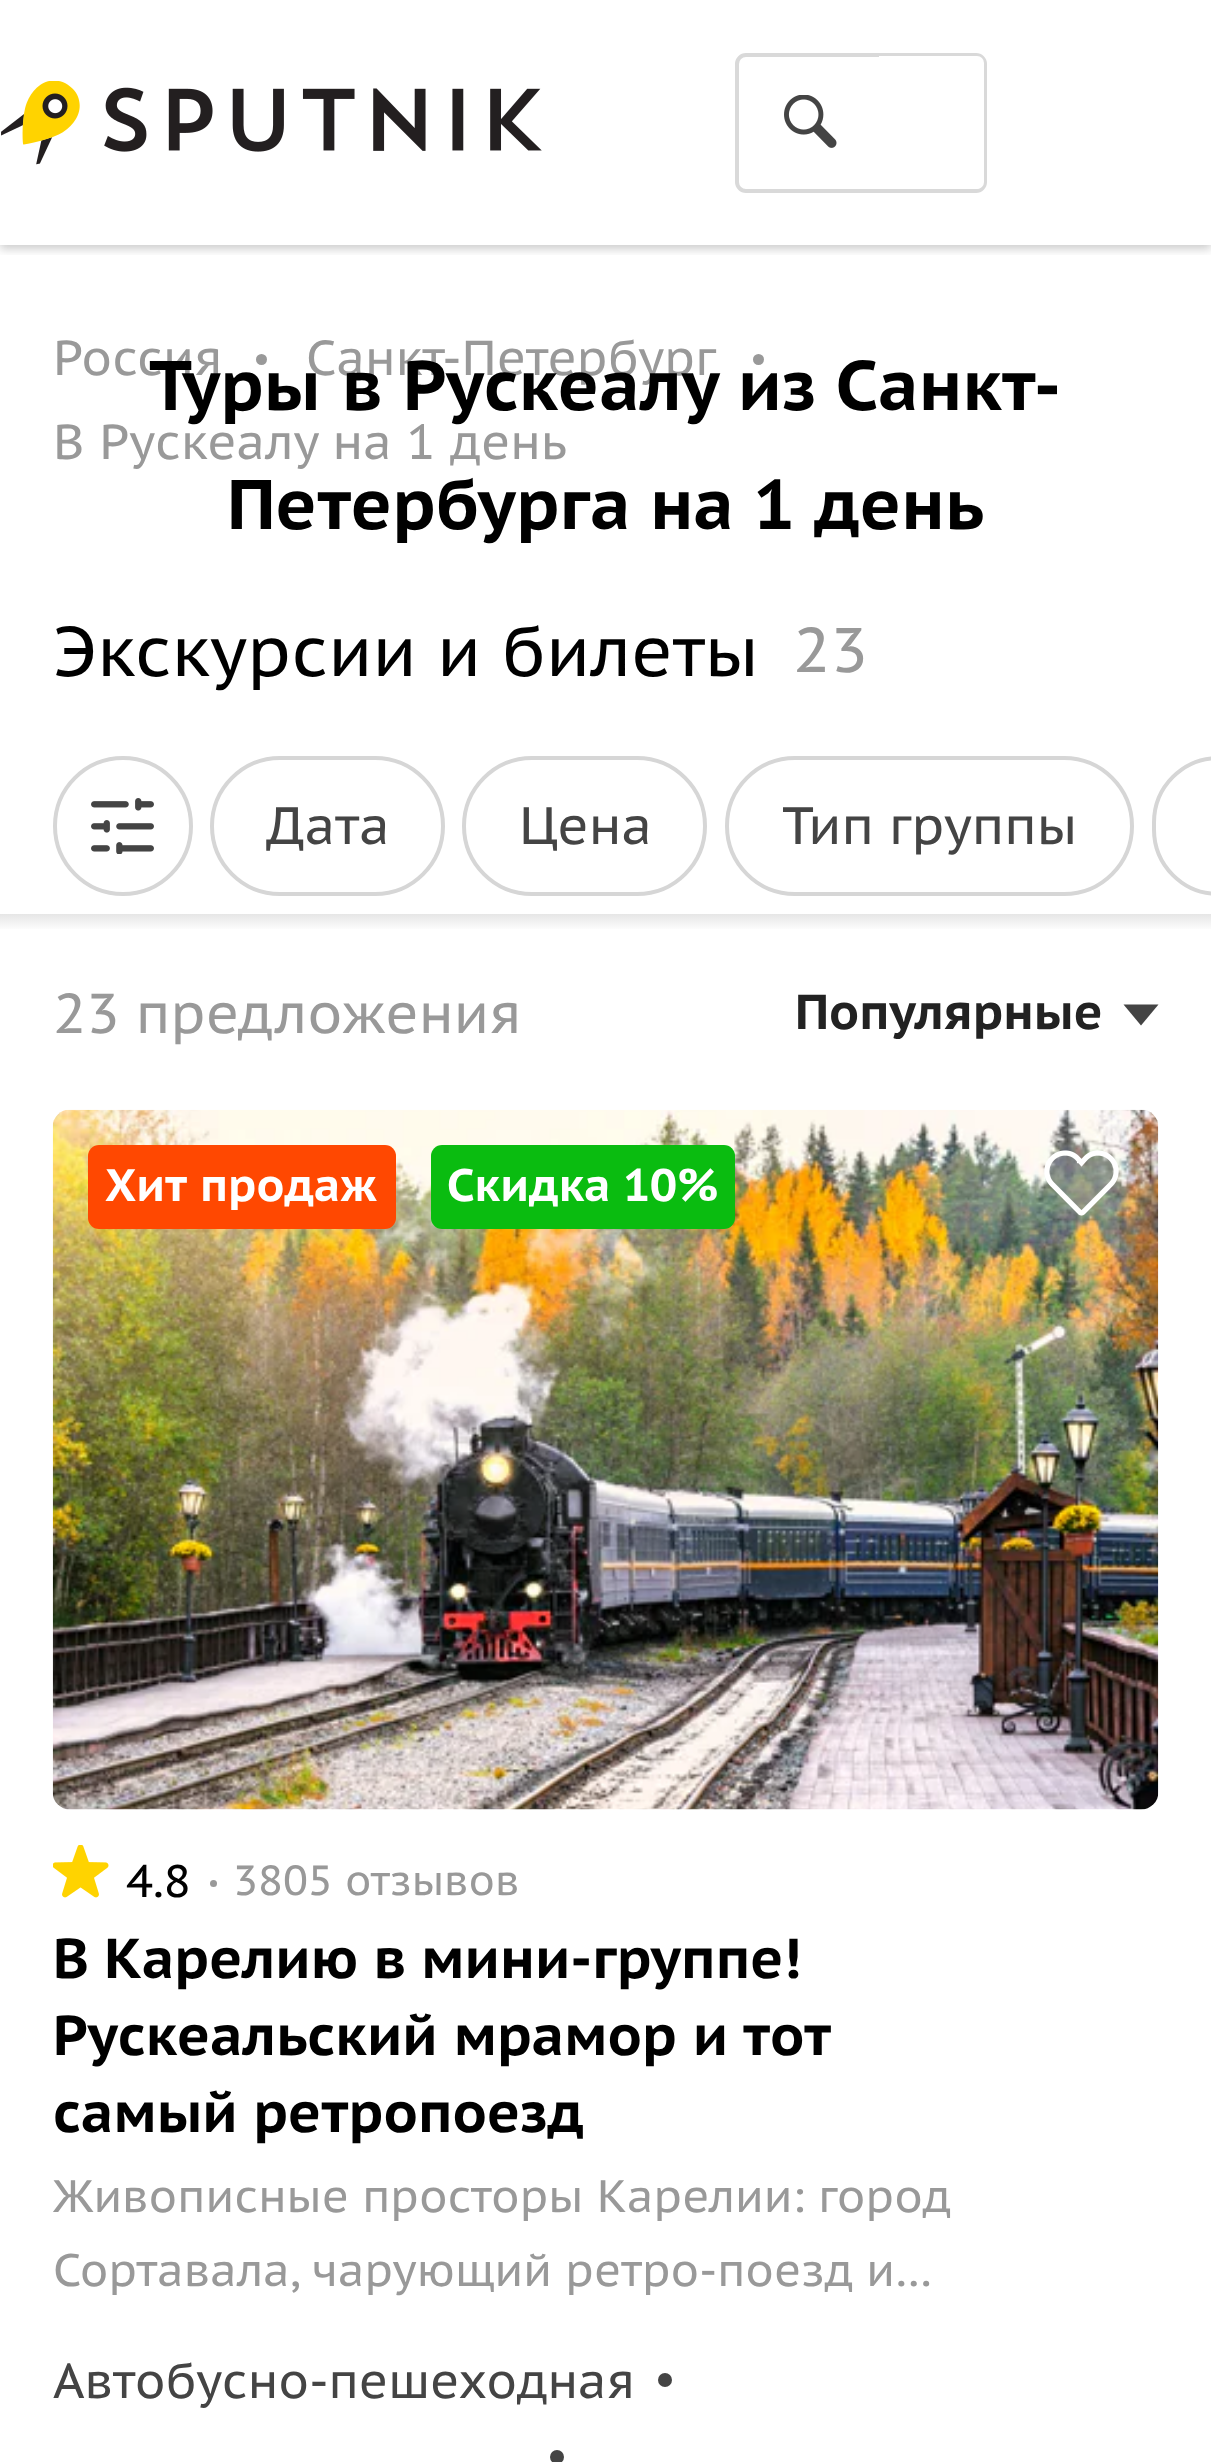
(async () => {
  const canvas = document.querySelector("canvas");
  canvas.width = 1211;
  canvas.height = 2462;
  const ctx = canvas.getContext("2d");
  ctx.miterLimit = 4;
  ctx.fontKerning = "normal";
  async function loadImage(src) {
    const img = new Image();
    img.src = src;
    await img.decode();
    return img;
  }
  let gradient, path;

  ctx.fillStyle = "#ffffff";
  ctx.fillRect(0, 0, 1211, 2462);
  ctx.save();
  ctx.beginPath();
  ctx.rect(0, 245, 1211, 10);
  ctx.clip();
  ctx.fillStyle = "rgba(0, 0, 0, 0.2)";
  ctx.filter = "blur(5px)";
  ctx.beginPath();
  ctx.rect(0, 4, 1211, 245);
  ctx.fill();
  ctx.filter = "none";
  ctx.restore();
  ctx.drawImage(await loadImage("img/1.png"), 1, 81, 541, 84);
  ctx.drawImage(await loadImage("img/2.png"), 784, 95, 53, 53);
  ctx.beginPath();
  ctx.roundRect(737, 55, 248, 136, 9);
  ctx.strokeStyle = "#d9d9d9";
  ctx.lineWidth = 4;
  ctx.stroke();
  ctx.beginPath();
  ctx.roundRect(879, 56, 105, 133, [0, 7, 7, 0]);
  ctx.fill();
  ctx.fillStyle = "#999999";
  ctx.beginPath();
  ctx.arc(261.5, 359.5, 5.5, 0, Math.PI * 2);
  ctx.fill();
  ctx.beginPath();
  ctx.arc(758.5, 359.5, 5.5, 0, Math.PI * 2);
  ctx.fill();
  ctx.beginPath();
  ctx.arc(123, 826, 68, 0, Math.PI * 2);
  ctx.strokeStyle = "#d6d6d6";
  ctx.stroke();
  ctx.drawImage(await loadImage("img/3.png"), 91, 798, 63, 56);
  ctx.beginPath();
  ctx.roundRect(212, 758, 231, 136, 68);
  ctx.stroke();
  ctx.beginPath();
  ctx.roundRect(464, 758, 241, 136, 68);
  ctx.stroke();
  ctx.beginPath();
  ctx.roundRect(727, 758, 405, 136, 68);
  ctx.stroke();
  ctx.beginPath();
  ctx.roundRect(1154, 758, 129, 136, 68);
  ctx.stroke();
  gradient = ctx.createLinearGradient(606, 931, 606, 914);
  gradient.addColorStop(0, "#ffffff");
  gradient.addColorStop(1, "#e6e6e6");
  ctx.fillStyle = gradient;
  ctx.fillRect(0, 914, 1211, 15);
  ctx.fillStyle = "#444444";
  path = new Path2D("M1123.5 1004.5H1158.5L1141 1025.5Z");
  ctx.fill(path);
  ctx.drawImage(await loadImage("img/4.png"), 52, 1109, 1107, 701);
  ctx.fillStyle = "#ff4801";
  ctx.beginPath();
  ctx.roundRect(88, 1145, 308, 84, 11);
  ctx.fill();
  ctx.fillStyle = "#0abc10";
  ctx.beginPath();
  ctx.roundRect(431, 1145, 304, 84, 11);
  ctx.fill();
  ctx.drawImage(await loadImage("img/5.png"), 1044, 1150, 75, 66);
  ctx.drawImage(await loadImage("img/6.png"), 53, 1845, 56, 53);
  ctx.fillStyle = "#999999";
  ctx.beginPath();
  ctx.arc(213.5, 1883.5, 3.5, 0, Math.PI * 2);
  ctx.fill();
  ctx.fillStyle = "#444444";
  ctx.beginPath();
  ctx.arc(665, 2380, 7, 0, Math.PI * 2);
  ctx.fill();
  ctx.beginPath();
  ctx.arc(557, 2457, 7, 0, Math.PI * 2);
  ctx.fill();
  ctx.font = "49px PT Sans Caption";
  ctx.fillStyle = "#999999";
  ctx.fillText("Россия", 53, 375);
  ctx.fillText("Санкт-Петербург", 306, 375);
  ctx.wordSpacing = "0.5px";
  ctx.fillText("В Рускеалу на 1 день", 53, 459);
  ctx.wordSpacing = "1.5px";
  ctx.font = "bold 70px PT Sans Caption";
  ctx.fillStyle = "#000000";
  ctx.fillText("Туры в Рускеалу из Санкт-", 149, 410);
  ctx.wordSpacing = "0px";
  ctx.fillText("Петербурга на 1 день", 227, 529);
  ctx.font = "70px PT Sans Caption";
  ctx.fillText("Экскурсии и билеты", 53, 676);
  ctx.font = "63px PT Sans Caption";
  ctx.fillStyle = "#999999";
  ctx.fillText("23", 793, 672);
  ctx.font = "52.5px PT Sans Caption";
  ctx.fillStyle = "#444444";
  for (const [text, x, y] of [
    ["Дата", 266, 844],
    ["Цена", 519, 844],
    ["Тип группы", 782, 844],
  ]) {
    ctx.fillText(text, x, y);
  }
  ctx.font = "56px PT Sans Caption";
  ctx.fillStyle = "#999999";
  ctx.fillText("23 предложения", 53, 1033);
  ctx.font = "bold 49px PT Sans Caption";
  ctx.fillStyle = "#222222";
  ctx.fillText("Популярные", 795, 1029);
  ctx.wordSpacing = "2px";
  ctx.font = "bold 45.5px PT Sans Caption";
  ctx.fillStyle = "#ffffff";
  ctx.fillText("Хит продаж", 105, 1201);
  ctx.wordSpacing = "0px";
  ctx.fillText("Скидка 10%", 447, 1201);
  ctx.font = "45.5px PT Sans Caption";
  ctx.fillStyle = "#000000";
  ctx.fillText("4.8", 126, 1897);
  ctx.font = "42px PT Sans Caption";
  ctx.fillStyle = "#999999";
  ctx.fillText("3805 отзывов", 233, 1895);
  ctx.font = "bold 56px PT Sans Caption";
  ctx.fillStyle = "#000000";
  ctx.fillText("В Карелию в мини-группе!", 53, 1978);
  ctx.wordSpacing = "0.5px";
  ctx.fillText("Рускеальский мрамор и тот", 53, 2055);
  ctx.wordSpacing = "0px";
  ctx.fillText("самый ретропоезд", 53, 2132);
  ctx.font = "45.5px PT Sans Caption";
  ctx.fillStyle = "#999999";
  ctx.fillText("Живописные просторы Карелии: город", 53, 2212);
  ctx.fillText("Сортавала, чарующий ретро-поезд и…", 53, 2286);
  ctx.font = "49px PT Sans Caption";
  ctx.fillStyle = "#444444";
  ctx.fillText("Автобусно-пешеходная", 53, 2398);
})();
